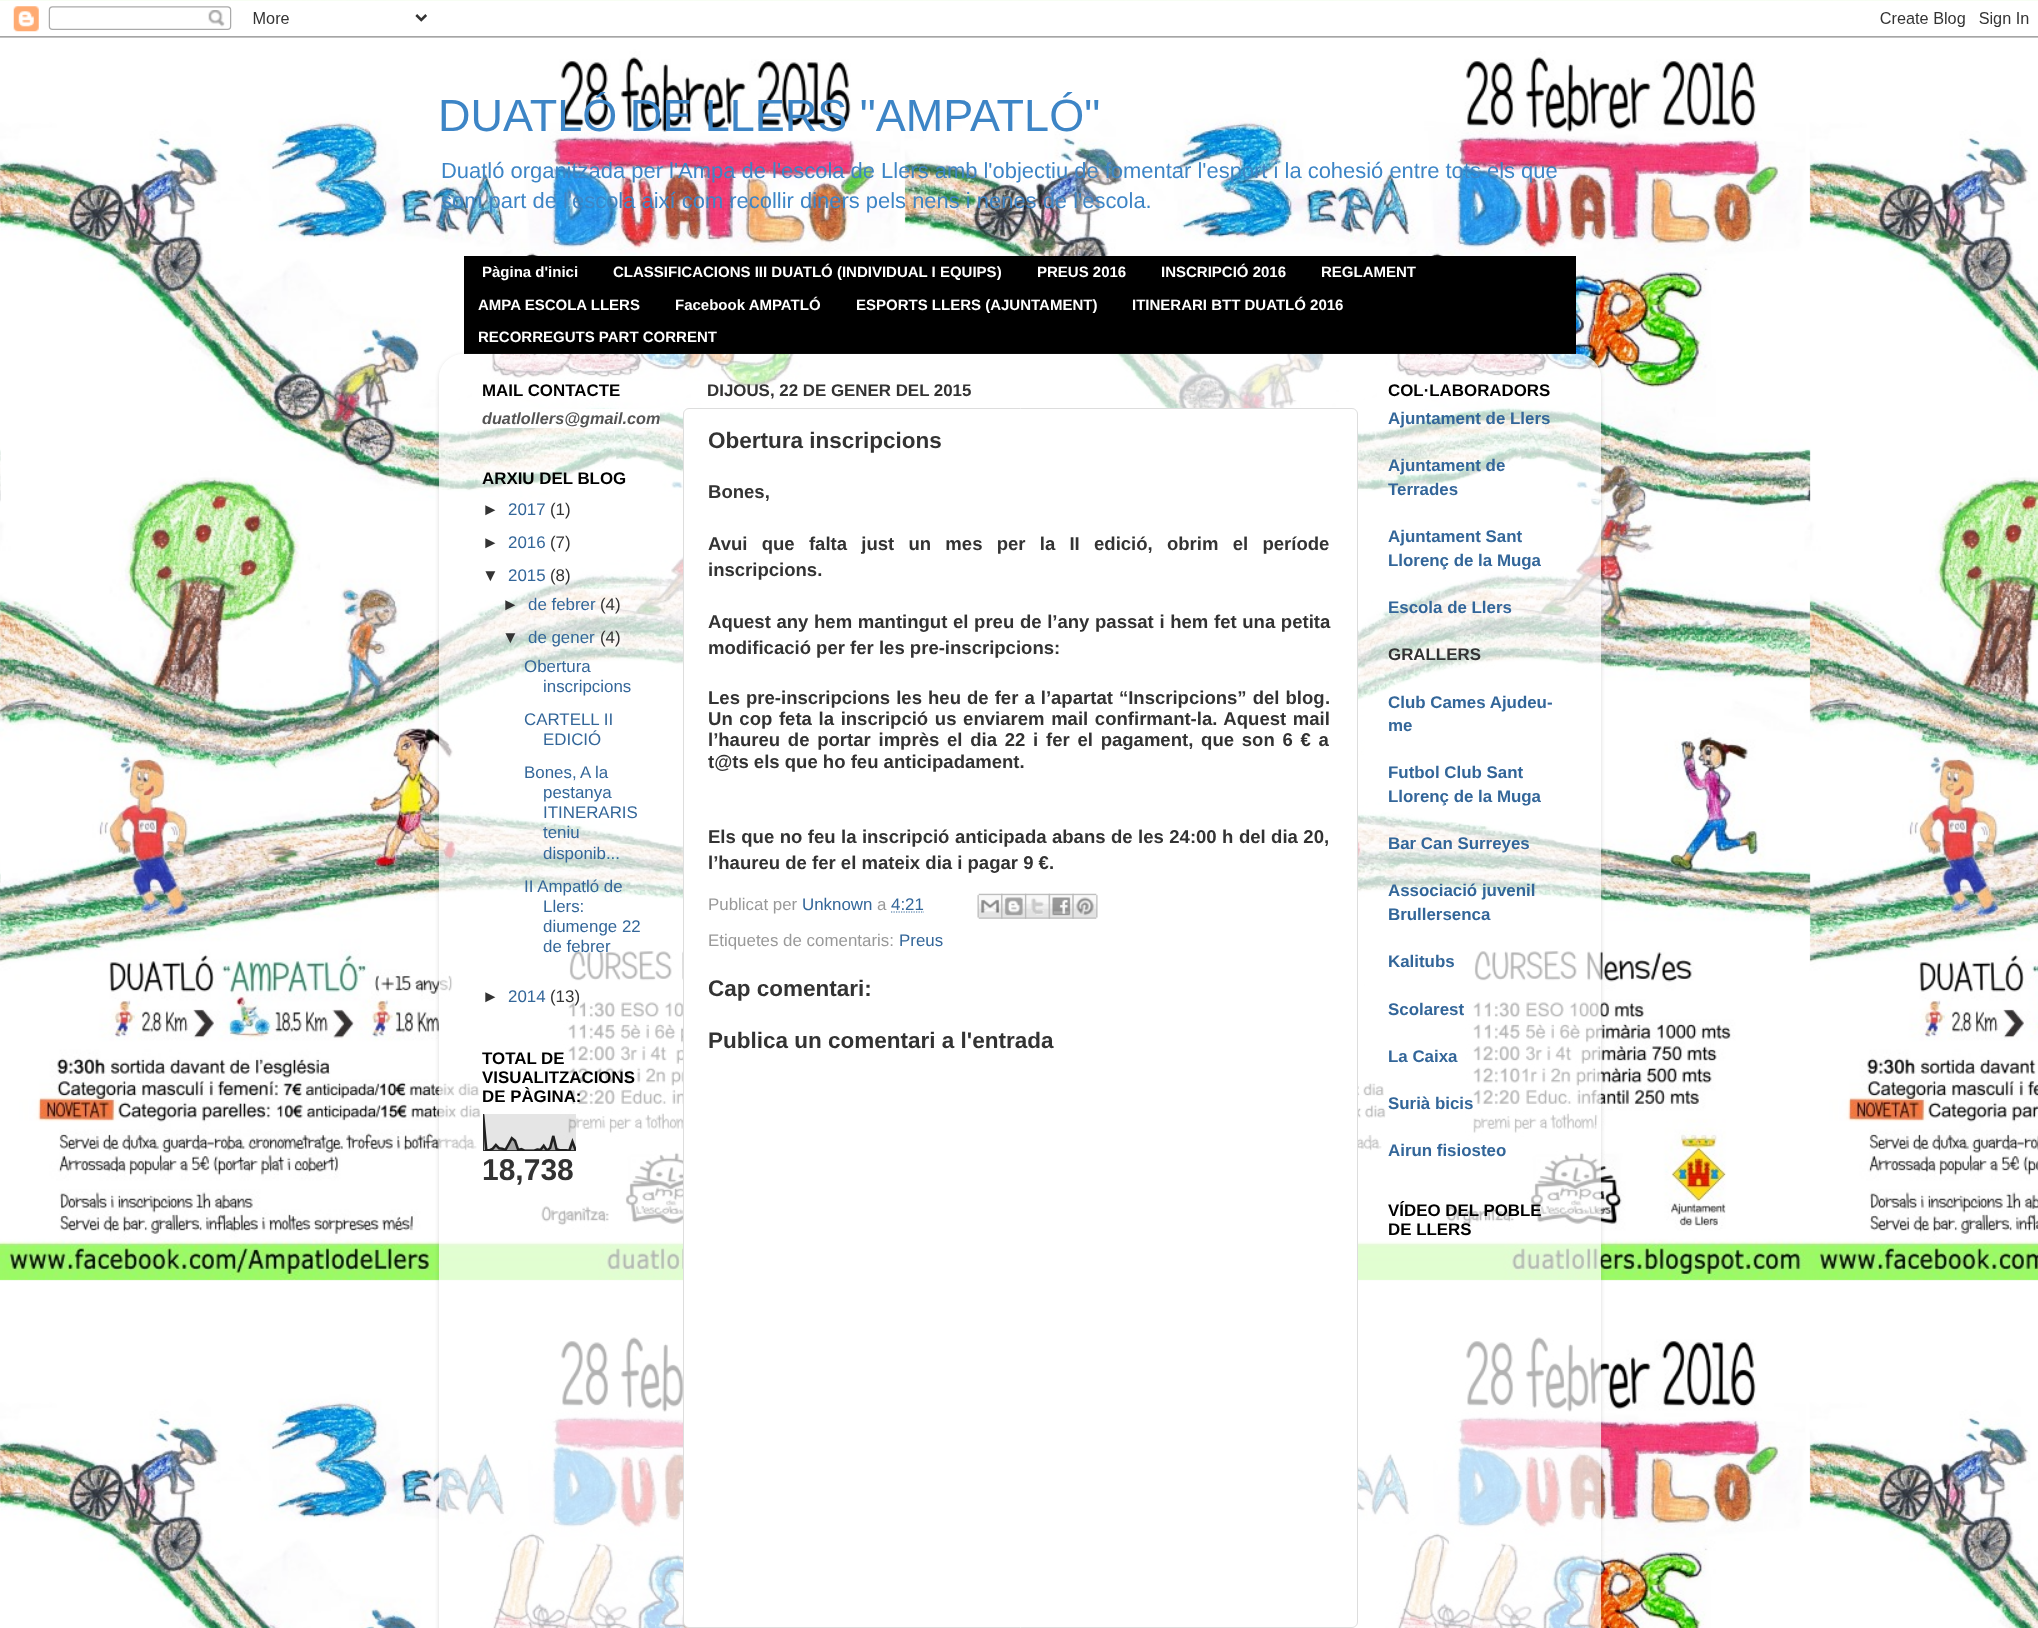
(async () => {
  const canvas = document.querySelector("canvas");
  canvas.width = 2038;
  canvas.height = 1628;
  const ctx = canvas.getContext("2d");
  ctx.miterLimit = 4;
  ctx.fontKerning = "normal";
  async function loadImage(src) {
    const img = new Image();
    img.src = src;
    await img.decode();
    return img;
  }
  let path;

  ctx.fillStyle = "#ffffff";
  ctx.fillRect(0, 0, 2038, 1628);
  ctx.drawImage(await loadImage("img/1.png"), 0, 0, 2038, 1628);
  ctx.drawImage(await loadImage("img/2.png"), 0, 0, 2038, 38);
  ctx.fillStyle = "#000000";
  ctx.fillRect(464, 256, 1112, 98);
  ctx.save();
  path = new Path2D("M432 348H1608V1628H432ZM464 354H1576C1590 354 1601 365 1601 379V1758H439V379C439 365 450 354 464 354Z");
  ctx.clip(path, "evenodd");
  ctx.fillStyle = "rgba(0, 0, 0, 0.15)";
  ctx.filter = "blur(2px)";
  ctx.beginPath();
  ctx.roundRect(439, 355, 1162, 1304, 25);
  ctx.fill();
  ctx.filter = "none";
  ctx.restore();
  ctx.drawImage(await loadImage("img/3.png"), 438, 353, 1164, 1275);
  ctx.fillStyle = "#ffffff";
  ctx.fillRect(490, 409, 170, 19);
  ctx.drawImage(await loadImage("img/4.png"), 483, 1114, 93, 37);
  ctx.beginPath();
  ctx.roundRect(683.5, 408.5, 674, 1219, 5.5);
  ctx.fill();
  ctx.strokeStyle = "#dddddd";
  ctx.stroke();
  path = new Path2D("M891 912H924");
  ctx.strokeStyle = "#336699";
  ctx.lineWidth = 1.2;
  ctx.setLineDash([1.25, 1.25]);
  ctx.stroke(path);
  ctx.drawImage(await loadImage("img/5.png"), 977, 893, 26, 26);
  ctx.drawImage(await loadImage("img/6.png"), 1001, 893, 26, 26);
  ctx.drawImage(await loadImage("img/7.png"), 1025, 893, 25, 26);
  ctx.drawImage(await loadImage("img/8.png"), 1048, 893, 26, 26);
  ctx.drawImage(await loadImage("img/9.png"), 1072, 893, 26, 26);
  ctx.font = "45px Liberation Sans";
  ctx.fillStyle = "#3d85c6";
  ctx.fillText("DUATLÓ DE LLERS \"AMPATLÓ\"", 438, 131);
  ctx.font = "21.95px Liberation Sans";
  ctx.fillText("Duatló organitzada per l'Ampa de l'escola de Llers amb l'objectiu de fomentar l'esport i la cohesió entre tots els que", 441, 178);
  ctx.fillText("som part de l'escola així com recollir diners pels nens i nenes de l'escola.", 441, 208);
  ctx.font = "bold 15px Liberation Sans";
  ctx.fillStyle = "#ffffff";
  for (const [text, x, y] of [
    ["Pàgina d'inici", 482, 277],
    ["CLASSIFICACIONS III DUATLÓ (INDIVIDUAL I EQUIPS)", 613, 277],
    ["PREUS 2016", 1037, 277],
    ["INSCRIPCIÓ 2016", 1161, 277],
    ["REGLAMENT", 1321, 277],
    ["AMPA ESCOLA LLERS", 478, 310],
    ["Facebook AMPATLÓ", 675, 310],
    ["ESPORTS LLERS (AJUNTAMENT)", 856, 310],
    ["ITINERARI BTT DUATLÓ 2016", 1132, 310],
    ["RECORREGUTS PART CORRENT", 478, 342],
  ]) {
    ctx.fillText(text, x, y);
  }
  ctx.font = "bold 16.9px Liberation Sans";
  ctx.fillStyle = "#000000";
  ctx.fillText("MAIL CONTACTE", 482, 396);
  ctx.font = "italic bold 16.25px Liberation Sans";
  ctx.fillStyle = "#555555";
  ctx.fillText("duatlollers@gmail.com", 482, 424);
  ctx.font = "bold 16.9px Liberation Sans";
  ctx.fillStyle = "#000000";
  ctx.fillText("ARXIU DEL BLOG", 482, 484);
  ctx.font = "16.9px Liberation Sans";
  ctx.fillStyle = "#333333";
  ctx.fillText("►", 482, 515);
  ctx.fillStyle = "#336699";
  ctx.fillText("2017", 508, 515);
  ctx.fillStyle = "#333333";
  ctx.fillText("(1)", 550, 515);
  ctx.fillText("►", 482, 548);
  ctx.fillStyle = "#336699";
  ctx.fillText("2016", 508, 548);
  ctx.fillStyle = "#333333";
  ctx.fillText("(7)", 550, 548);
  ctx.fillText("▼", 482, 581);
  ctx.fillStyle = "#336699";
  ctx.fillText("2015", 508, 581);
  ctx.fillStyle = "#333333";
  ctx.fillText("(8)", 550, 581);
  ctx.fillText("►", 502, 610);
  ctx.fillStyle = "#336699";
  ctx.fillText("de febrer", 528, 610);
  ctx.fillStyle = "#333333";
  ctx.fillText("(4)", 600, 610);
  ctx.fillText("▼", 502, 643);
  ctx.fillStyle = "#336699";
  ctx.fillText("de gener", 528, 643);
  ctx.fillStyle = "#333333";
  ctx.fillText("(4)", 600, 643);
  ctx.fillStyle = "#336699";
  for (const [text, x, y] of [
    ["Obertura", 524, 672],
    ["inscripcions", 543, 692],
    ["CARTELL II", 524, 725],
    ["EDICIÓ", 543, 745],
    ["Bones,", 524, 778],
    ["A la", 580, 778],
    ["pestanya", 543, 798],
    ["ITINERARIS", 543, 818],
    ["teniu", 543, 838],
    ["disponib...", 543, 859],
    ["II Ampatló de", 524, 892],
    ["Llers:", 543, 912],
    ["diumenge 22", 543, 932],
    ["de febrer", 543, 952],
  ]) {
    ctx.fillText(text, x, y);
  }
  ctx.fillStyle = "#333333";
  ctx.fillText("►", 482, 1002);
  ctx.fillStyle = "#336699";
  ctx.fillText("2014", 508, 1002);
  ctx.fillStyle = "#333333";
  ctx.fillText("(13)", 550, 1002);
  ctx.font = "bold 16.9px Liberation Sans";
  ctx.fillStyle = "#000000";
  for (const [text, x, y] of [
    ["TOTAL DE", 482, 1064],
    ["VISUALITZACIONS", 482, 1083],
    ["DE PÀGINA:", 482, 1102],
  ]) {
    ctx.fillText(text, x, y);
  }
  ctx.font = "bold 30px Liberation Sans";
  ctx.fillStyle = "#333333";
  ctx.fillText("18,738", 482, 1180);
  ctx.font = "bold 16.9px Liberation Sans";
  ctx.fillText("DIJOUS, 22 DE GENER DEL 2015", 707, 396);
  ctx.font = "bold 22.5px Liberation Sans";
  ctx.fillText("Obertura inscripcions", 708, 448);
  ctx.font = "bold 18.55px Liberation Sans";
  ctx.fillText("Bones,", 708, 498);
  ctx.wordSpacing = "9.1px";
  ctx.fillText("Avui que falta just un mes per la II edició, obrim el període", 708, 550);
  ctx.wordSpacing = "0px";
  ctx.fillText("inscripcions.", 708, 576);
  ctx.wordSpacing = "0.5px";
  ctx.fillText("Aquest any hem mantingut el preu de l’any passat i hem fet una petita", 708, 628);
  ctx.wordSpacing = "0px";
  ctx.fillText("modificació per fer les pre-inscripcions:", 708, 654);
  ctx.wordSpacing = "0.9px";
  ctx.fillText("Les pre-inscripcions les heu de fer a l’apartat “Inscripcions” del blog", 708, 704);
  ctx.wordSpacing = "0px";
  ctx.fillText(".", 1325, 704);
  ctx.wordSpacing = "1.5px";
  ctx.fillText("Un cop feta la inscripció us enviarem mail confirmant-la. Aquest mail", 708, 725);
  ctx.wordSpacing = "2.6px";
  ctx.fillText("l’haureu de portar imprès el dia 22 i fer el pagament, que son 6 € a", 708, 746);
  ctx.wordSpacing = "0px";
  ctx.fillText("t@ts els que ho feu anticipadament.", 708, 768);
  ctx.wordSpacing = "0.3px";
  ctx.fillText("Els que no feu la inscripció anticipada abans de les 24:00 h del dia 20,", 708, 843);
  ctx.wordSpacing = "0px";
  ctx.fillText("l’haureu de fer el mateix dia i pagar 9 €.", 708, 869);
  ctx.font = "16.9px Liberation Sans";
  ctx.fillStyle = "#999999";
  ctx.fillText("Publicat per", 708, 910);
  ctx.fillStyle = "#336699";
  ctx.fillText("Unknown", 802, 910);
  ctx.fillStyle = "#999999";
  ctx.fillText("a", 877, 910);
  ctx.fillStyle = "#336699";
  ctx.fillText("4:21", 891, 910);
  ctx.fillStyle = "#999999";
  ctx.fillText("Etiquetes de comentaris:", 708, 946);
  ctx.fillStyle = "#336699";
  ctx.fillText("Preus", 899, 946);
  ctx.font = "bold 22.5px Liberation Sans";
  ctx.fillStyle = "#333333";
  ctx.fillText("Cap comentari:", 708, 996);
  ctx.fillText("Publica un comentari a l'entrada", 708, 1048);
  ctx.font = "bold 16.9px Liberation Sans";
  ctx.fillStyle = "#000000";
  ctx.fillText("COL·LABORADORS", 1388, 396);
  ctx.fillStyle = "#336699";
  for (const [text, x, y] of [
    ["Ajuntament de Llers", 1388, 424],
    ["Ajuntament de", 1388, 471],
    ["Terrades", 1388, 495],
    ["Ajuntament Sant", 1388, 542],
    ["Llorenç de la Muga", 1388, 566],
    ["Escola de Llers", 1388, 613],
  ]) {
    ctx.fillText(text, x, y);
  }
  ctx.fillStyle = "#333333";
  ctx.fillText("GRALLERS", 1388, 660);
  ctx.fillStyle = "#336699";
  for (const [text, x, y] of [
    ["Club Cames Ajudeu-", 1388, 708],
    ["me", 1388, 731],
    ["Futbol Club Sant", 1388, 778],
    ["Llorenç de la Muga", 1388, 802],
    ["Bar Can Surreyes", 1388, 849],
    ["Associació juvenil", 1388, 896],
    ["Brullersenca", 1388, 920],
    ["Kalitubs", 1388, 967],
    ["Scolarest", 1388, 1015],
    ["La Caixa", 1388, 1062],
    ["Surià bicis", 1388, 1109],
    ["Airun fisiosteo", 1388, 1156],
  ]) {
    ctx.fillText(text, x, y);
  }
  ctx.fillStyle = "#000000";
  ctx.fillText("VÍDEO DEL POBLE", 1388, 1216);
  ctx.fillText("DE LLERS", 1388, 1235);
})();
